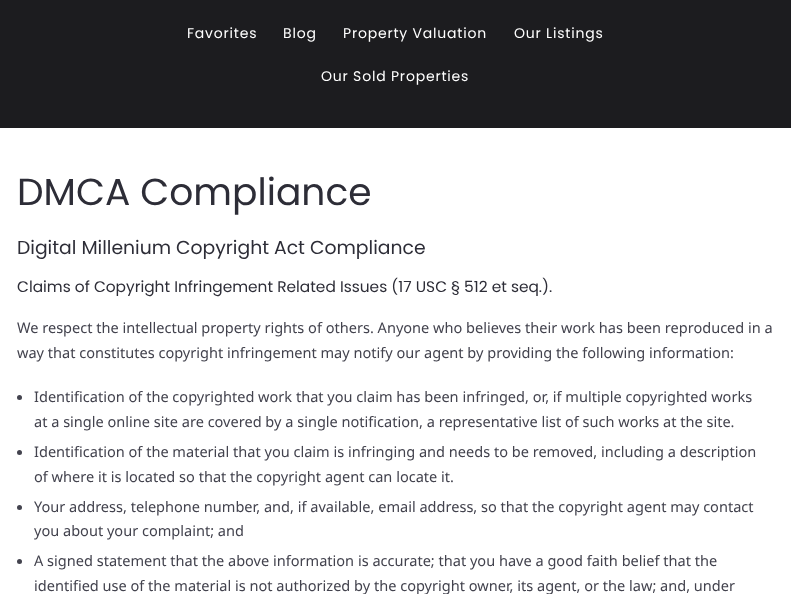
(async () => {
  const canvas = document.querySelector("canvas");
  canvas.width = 791;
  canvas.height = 594;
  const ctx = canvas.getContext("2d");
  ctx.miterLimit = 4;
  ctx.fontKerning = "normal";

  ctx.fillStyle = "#ffffff";
  ctx.fillRect(0, 0, 791, 594);
  ctx.fillStyle = "#1c1c1f";
  ctx.fillRect(0, 0, 791, 128);
  ctx.fillStyle = "#43434e";
  ctx.beginPath();
  ctx.arc(19.5, 397.5, 2.5, 0, Math.PI * 2);
  ctx.fill();
  ctx.beginPath();
  ctx.arc(19.5, 452.5, 2.5, 0, Math.PI * 2);
  ctx.fill();
  ctx.beginPath();
  ctx.arc(19.5, 507.5, 2.5, 0, Math.PI * 2);
  ctx.fill();
  ctx.beginPath();
  ctx.arc(19.5, 561.5, 2.5, 0, Math.PI * 2);
  ctx.fill();
  ctx.letterSpacing = "0.8px";
  ctx.font = "14px Poppins";
  ctx.fillStyle = "#ffffff";
  for (const [text, x, y] of [
    ["Favorites", 187, 38],
    ["Blog", 283, 38],
    ["Property Valuation", 343, 38],
    ["Our Listings", 514, 38],
    ["Our Sold Properties", 321, 81],
  ]) {
    ctx.fillText(text, x, y);
  }
  ctx.letterSpacing = "0px";
  ctx.font = "37.6px Poppins";
  ctx.fillStyle = "#2d2d37";
  ctx.fillText("DMCA Compliance", 17, 205);
  ctx.font = "18.8px Poppins";
  ctx.fillText("Digital Millenium Copyright Act Compliance", 17, 254);
  ctx.font = "15.4px Poppins";
  ctx.fillText("Claims of Copyright Infringement Related Issues (17 USC § 512 et seq.).", 17, 292);
  ctx.font = "14.55px Noto Sans";
  ctx.fillStyle = "#43434e";
  for (const [text, x, y] of [
    ["We respect the intellectual property rights of others. Anyone who believes their work has been reproduced in a", 17, 333],
    ["way that constitutes copyright infringement may notify our agent by providing the following information:", 17, 358],
    ["Identification of the copyrighted work that you claim has been infringed, or, if multiple copyrighted works", 34, 402],
    ["at a single online site are covered by a single notification, a representative list of such works at the site.", 34, 427],
    ["Identification of the material that you claim is infringing and needs to be removed, including a description", 34, 457],
    ["of where it is located so that the copyright agent can locate it.", 34, 482],
    ["Your address, telephone number, and, if available, email address, so that the copyright agent may contact", 34, 512],
    ["you about your complaint; and", 34, 536],
    ["A signed statement that the above information is accurate; that you have a good faith belief that the", 34, 566],
    ["identified use of the material is not authorized by the copyright owner, its agent, or the law; and, under", 34, 591],
  ]) {
    ctx.fillText(text, x, y);
  }
})();
